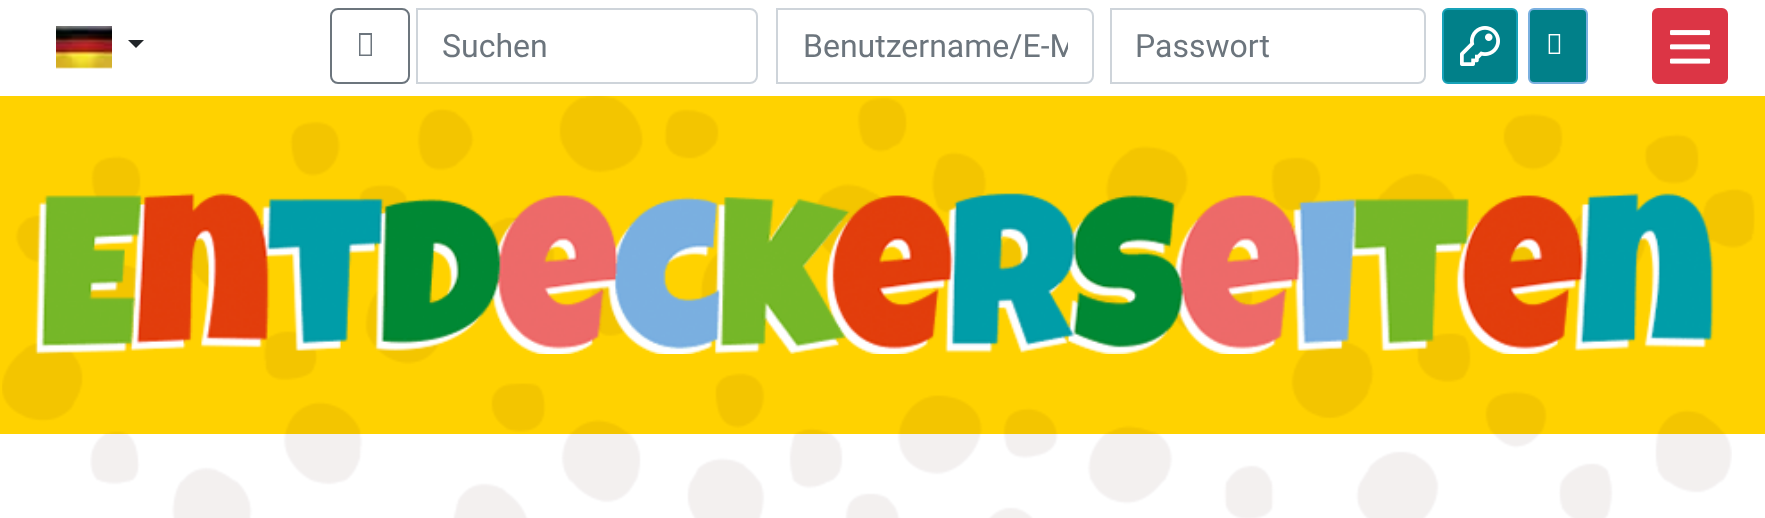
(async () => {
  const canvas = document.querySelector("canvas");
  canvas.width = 1765;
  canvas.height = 518;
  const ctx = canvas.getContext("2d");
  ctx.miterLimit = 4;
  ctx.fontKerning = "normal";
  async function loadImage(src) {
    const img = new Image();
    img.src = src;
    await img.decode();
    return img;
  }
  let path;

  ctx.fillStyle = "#ffffff";
  ctx.fillRect(0, 0, 1765, 518);
  ctx.drawImage(await loadImage("img/1.png"), 90, 434, 1642, 84);
  ctx.drawImage(await loadImage("img/2.png"), 56, 26, 56, 43);
  ctx.fillStyle = "#212529";
  path = new Path2D("M128 40H144L136 48Z");
  ctx.fill(path);
  ctx.beginPath();
  ctx.roundRect(331, 9, 78, 74, 7);
  ctx.strokeStyle = "#6c757d";
  ctx.lineWidth = 2;
  ctx.stroke();
  ctx.fillStyle = "#6c757d";
  path = new Path2D("M359 56V33H372V56ZM360.5 54.5H370.5V35H360.5Z");
  ctx.fill(path);
  ctx.beginPath();
  ctx.roundRect(417, 9, 340, 74, [0, 7, 7, 0]);
  ctx.strokeStyle = "#ced4da";
  ctx.stroke();
  ctx.beginPath();
  ctx.roundRect(777, 9, 316, 74, [0, 7, 7, 0]);
  ctx.stroke();
  ctx.beginPath();
  ctx.roundRect(1111, 9, 314, 74, [0, 7, 7, 0]);
  ctx.stroke();
  ctx.fillStyle = "#018089";
  ctx.beginPath();
  ctx.roundRect(1443, 9, 74, 74, 5);
  ctx.fill();
  ctx.strokeStyle = "#17a2b8";
  ctx.stroke();
  ctx.drawImage(await loadImage("img/3.png"), 1460, 26, 40, 40);
  ctx.beginPath();
  ctx.roundRect(1529, 9, 58, 74, 5);
  ctx.fill();
  ctx.strokeStyle = "#7ab0e0";
  ctx.stroke();
  ctx.drawImage(await loadImage("img/4.png"), 1548, 34, 13, 20);
  ctx.fillStyle = "#dc3545";
  ctx.beginPath();
  ctx.roundRect(1653, 9, 74, 74, 5);
  ctx.fill();
  ctx.strokeStyle = "#dc3545";
  ctx.stroke();
  ctx.drawImage(await loadImage("img/5.png"), 1670, 30, 40, 34);
  ctx.fillStyle = "#ffd200";
  ctx.fillRect(0, 96, 1765, 338);
  ctx.drawImage(await loadImage("img/6.png"), 2, 96, 1753, 338);
  ctx.drawImage(await loadImage("img/7.png"), 35, 193, 1679, 161);
  ctx.font = "32px Roboto";
  ctx.fillStyle = "#6c757d";
  ctx.fillText("Suchen", 442, 57);
  ctx.save();
  ctx.beginPath();
  ctx.rect(802, 28, 266, 38);
  ctx.clip();
  ctx.fillText("Benutzername/E-M", 803, 57);
  ctx.restore();
  ctx.fillText("Passwort", 1135, 57);
})();
